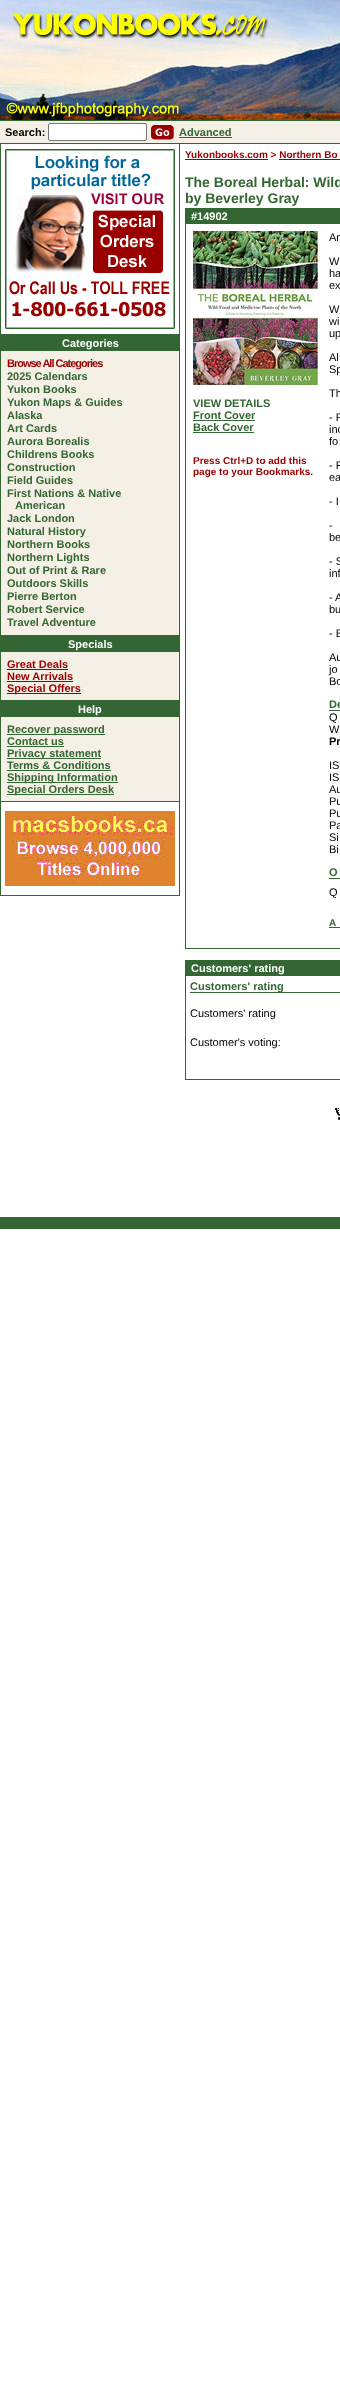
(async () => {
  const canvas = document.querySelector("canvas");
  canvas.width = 340;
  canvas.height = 2397;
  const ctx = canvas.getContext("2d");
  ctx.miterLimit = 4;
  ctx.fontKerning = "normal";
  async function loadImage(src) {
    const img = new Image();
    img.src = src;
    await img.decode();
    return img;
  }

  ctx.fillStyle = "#ffffff";
  ctx.fillRect(0, 0, 340, 2397);
  ctx.drawImage(await loadImage("img/1.png"), 0, 0, 340, 120);
  ctx.fillStyle = "#336633";
  ctx.fillRect(0, 120, 340, 1);
  ctx.fillStyle = "#f5f0e5";
  ctx.fillRect(0, 121, 340, 22);
  ctx.fillStyle = "#ffffff";
  ctx.beginPath();
  ctx.roundRect(48.5, 123.5, 98, 17, 1.5);
  ctx.fill();
  ctx.strokeStyle = "#767676";
  ctx.stroke();
  ctx.drawImage(await loadImage("img/2.png"), 151, 125, 23, 15);
  for (const [x, y, w, h, color] of [
    [179, 137, 53, 1, "#336633"],
    [0, 143, 340, 1, "#336633"],
    [179, 144, 1, 191, "#336633"],
    [0, 334, 180, 468, "#336633"],
    [0, 144, 1, 191, "#336633"],
  ]) {
    ctx.fillStyle = color;
    ctx.fillRect(x, y, w, h);
  }
  ctx.drawImage(await loadImage("img/3.png"), 5, 149, 170, 180);
  for (const [x, y, w, h, color] of [
    [1, 351, 178, 284, "#f5f0e5"],
    [1, 652, 178, 48, "#f5f0e5"],
    [7, 669, 61, 1, "#990000"],
    [7, 681, 66, 1, "#990000"],
    [7, 693, 74, 1, "#990000"],
    [1, 717, 178, 84, "#f5f0e5"],
    [7, 734, 98, 1, "#336633"],
    [7, 746, 57, 1, "#336633"],
    [7, 758, 94, 1, "#336633"],
    [7, 770, 104, 1, "#336633"],
    [7, 782, 111, 1, "#336633"],
    [7, 794, 107, 1, "#336633"],
    [179, 802, 1, 94, "#336633"],
    [0, 895, 180, 1, "#336633"],
    [0, 802, 1, 94, "#336633"],
  ]) {
    ctx.fillStyle = color;
    ctx.fillRect(x, y, w, h);
  }
  ctx.drawImage(await loadImage("img/4.png"), 5, 811, 170, 75);
  for (const [x, y, w, h, color] of [
    [185, 159, 83, 1, "#990000"],
    [279, 159, 61, 1, "#990000"],
    [185, 208, 155, 741, "#336633"],
    [186, 224, 154, 724, "#ffffff"],
  ]) {
    ctx.fillStyle = color;
    ctx.fillRect(x, y, w, h);
  }
  ctx.drawImage(await loadImage("img/5.png"), 193, 231, 125, 154);
  for (const [x, y, w, h, color] of [
    [193, 420, 62, 1, "#336633"],
    [193, 432, 61, 1, "#336633"],
    [329, 710, 11, 1, "#336633"],
    [329, 878, 11, 1, "#336633"],
    [329, 927, 11, 1, "#336633"],
    [185, 960, 155, 120, "#336633"],
    [186, 976, 154, 103, "#ffffff"],
    [190, 992, 150, 1, "#336633"],
  ]) {
    ctx.fillStyle = color;
    ctx.fillRect(x, y, w, h);
  }
  ctx.drawImage(await loadImage("img/6.png"), 335, 1108, 5, 12);
  ctx.fillRect(0, 1217, 340, 12);
  ctx.font = "bold 11px Liberation Sans";
  ctx.fillStyle = "#000000";
  ctx.fillText("Search:", 5, 136);
  ctx.fillStyle = "#336633";
  ctx.fillText("Advanced", 179, 136);
  ctx.fillStyle = "#ffffff";
  ctx.fillText("Categories", 62, 347);
  ctx.letterSpacing = "-1px";
  ctx.fillStyle = "#990000";
  ctx.fillText("Browse All Categories", 7, 367);
  ctx.letterSpacing = "0px";
  ctx.fillStyle = "#336633";
  for (const [text, x, y] of [
    ["2025 Calendars", 7, 380],
    ["Yukon Books", 7, 393],
    ["Yukon Maps & Guides", 7, 406],
    ["Alaska", 7, 419],
    ["Art Cards", 7, 432],
    ["Aurora Borealis", 7, 445],
    ["Childrens Books", 7, 458],
    ["Construction", 7, 471],
    ["Field Guides", 7, 484],
    ["First Nations & Native", 7, 497],
    ["American", 15, 509],
    ["Jack London", 7, 522],
    ["Natural History", 7, 535],
    ["Northern Books", 7, 548],
    ["Northern Lights", 7, 561],
    ["Out of Print & Rare", 7, 574],
    ["Outdoors Skills", 7, 587],
    ["Pierre Berton", 7, 600],
    ["Robert Service", 7, 613],
    ["Travel Adventure", 7, 626],
  ]) {
    ctx.fillText(text, x, y);
  }
  ctx.fillStyle = "#ffffff";
  ctx.fillText("Specials", 68, 648);
  ctx.fillStyle = "#990000";
  for (const [text, x, y] of [
    ["Great Deals", 7, 668],
    ["New Arrivals", 7, 680],
    ["Special Offers", 7, 692],
  ]) {
    ctx.fillText(text, x, y);
  }
  ctx.fillStyle = "#ffffff";
  ctx.fillText("Help", 78, 713);
  ctx.fillStyle = "#336633";
  for (const [text, x, y] of [
    ["Recover password", 7, 733],
    ["Contact us", 7, 745],
    ["Privacy statement", 7, 757],
    ["Terms & Conditions", 7, 769],
    ["Shipping Information", 7, 781],
    ["Special Orders Desk", 7, 793],
  ]) {
    ctx.fillText(text, x, y);
  }
  ctx.font = "bold 10px Liberation Sans";
  ctx.fillStyle = "#990000";
  ctx.fillText("Yukonbooks.com > Northern Bo", 185, 158);
  ctx.font = "bold 14px Liberation Sans";
  ctx.fillStyle = "#336633";
  ctx.fillText("The Boreal Herbal: Wild", 185, 187);
  ctx.fillText("by Beverley Gray", 185, 203);
  ctx.font = "bold 11px Liberation Sans";
  ctx.fillStyle = "#ffffff";
  ctx.fillText("#14902", 191, 220);
  ctx.fillStyle = "#336633";
  for (const [text, x, y] of [
    ["VIEW DETAILS", 193, 407],
    ["Front Cover", 193, 419],
    ["Back Cover", 193, 431],
  ]) {
    ctx.fillText(text, x, y);
  }
  ctx.font = "bold 10px Liberation Sans";
  ctx.fillStyle = "#990000";
  ctx.fillText("Press Ctrl+D to add this", 193, 464);
  ctx.fillText("page to your Bookmarks.", 193, 475);
  ctx.font = "11px Liberation Sans";
  ctx.fillStyle = "#000000";
  for (const [text, x, y] of [
    ["An", 329, 241],
    ["W", 329, 265],
    ["ha", 329, 277],
    ["ex", 329, 289],
    ["W", 329, 313],
    ["wi", 329, 325],
    ["up", 329, 337],
    ["Al", 329, 361],
    ["Sp", 329, 373],
    ["Th", 329, 397],
    ["- P", 329, 421],
    ["inc", 329, 433],
    ["fo", 329, 445],
    ["- F", 329, 469],
    ["ea", 329, 481],
    ["- I", 329, 505],
    ["-", 329, 529],
    ["be", 329, 541],
    ["- S", 329, 565],
    ["inf", 329, 577],
    ["- A", 329, 601],
    ["bu", 329, 613],
    ["- B", 329, 637],
    ["Au", 329, 661],
    ["jo", 329, 673],
    ["Bo", 329, 685],
  ]) {
    ctx.fillText(text, x, y);
  }
  ctx.font = "bold 11px Liberation Sans";
  ctx.fillStyle = "#336633";
  ctx.fillText("De", 329, 708);
  ctx.font = "11px Liberation Sans";
  ctx.fillStyle = "#000000";
  ctx.fillText("Q", 329, 721);
  ctx.fillText("W", 329, 733);
  ctx.font = "bold 11px Liberation Sans";
  ctx.fillText("Pr", 329, 745);
  ctx.font = "11px Liberation Sans";
  for (const [text, x, y] of [
    ["IS", 329, 769],
    ["IS", 329, 781],
    ["Au", 329, 793],
    ["Pu", 329, 805],
    ["Pu", 329, 817],
    ["Pa", 329, 829],
    ["Si", 329, 841],
    ["Bi", 329, 853],
  ]) {
    ctx.fillText(text, x, y);
  }
  ctx.font = "bold 11px Liberation Sans";
  ctx.fillStyle = "#336633";
  ctx.fillText("O", 329, 876);
  ctx.font = "11px Liberation Sans";
  ctx.fillStyle = "#000000";
  ctx.fillText("Q", 329, 896);
  ctx.font = "bold 10px Liberation Sans";
  ctx.fillStyle = "#336633";
  ctx.fillText("A", 329, 926);
  ctx.font = "bold 11px Liberation Sans";
  ctx.fillStyle = "#ffffff";
  ctx.fillText("Customers' rating", 191, 972);
  ctx.fillStyle = "#336633";
  ctx.fillText("Customers' rating", 190, 990);
  ctx.font = "11px Liberation Sans";
  ctx.fillStyle = "#000000";
  ctx.fillText("Customers' rating", 190, 1017);
  ctx.fillText("Customer's voting:", 190, 1046);
})();
